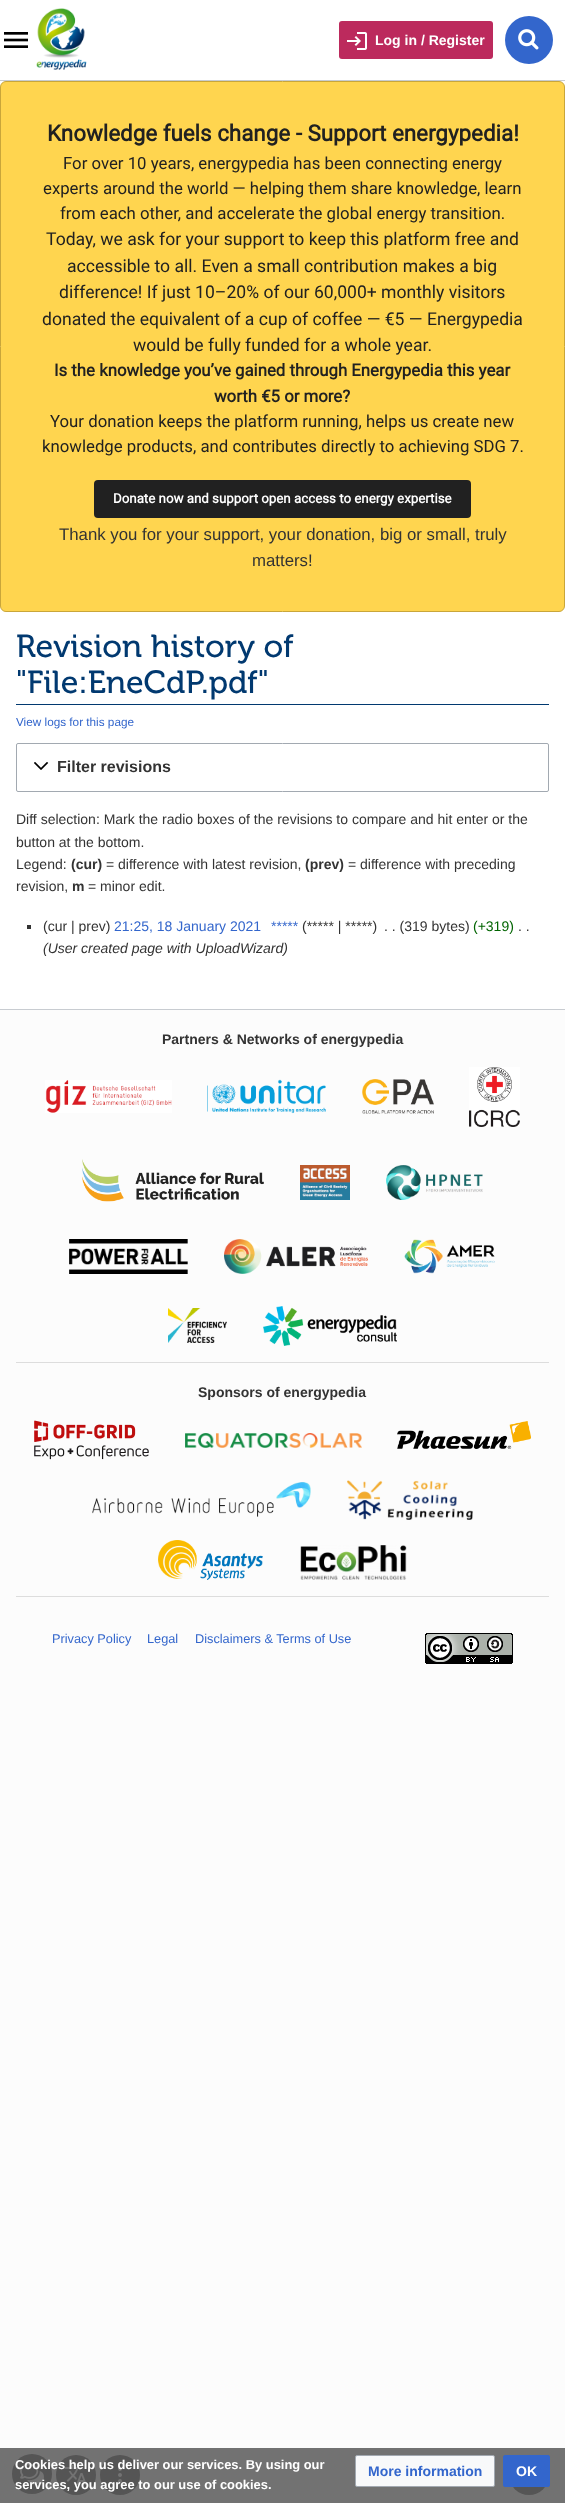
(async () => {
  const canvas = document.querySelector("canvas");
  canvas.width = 565;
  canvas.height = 2503;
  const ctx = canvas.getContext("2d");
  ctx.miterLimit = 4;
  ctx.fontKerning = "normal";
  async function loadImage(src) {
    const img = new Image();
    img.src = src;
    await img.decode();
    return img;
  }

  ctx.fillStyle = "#fcfcfc";
  ctx.fillRect(0, 0, 565, 2503);
  ctx.fillStyle = "#727272";
  ctx.fillRect(0, 2448, 565, 55);
  ctx.fillStyle = "#ffffff";
  ctx.fillRect(0, 0, 565, 80);
  ctx.drawImage(await loadImage("img/1.png"), 36, 8, 51, 62);
  ctx.fillStyle = "#bc2a5d";
  ctx.beginPath();
  ctx.roundRect(339, 21, 154, 38, 3);
  ctx.fill();
  ctx.drawImage(await loadImage("img/2.png"), 347, 32, 20, 18);
  ctx.fillStyle = "#3366cc";
  ctx.beginPath();
  ctx.arc(529, 40, 24, 0, Math.PI * 2);
  ctx.fill();
  ctx.drawImage(await loadImage("img/3.png"), 518, 29, 21, 21);
  ctx.fillStyle = "#ffffff";
  ctx.fillRect(0, 81, 565, 928);
  ctx.drawImage(await loadImage("img/4.png"), 4, 32, 24, 16);
  ctx.fillStyle = "#c8ccd1";
  ctx.fillRect(0, 80, 565, 1);
  ctx.fillRect(0, 1009, 565, 1);
  ctx.fillStyle = "#ffd54f";
  ctx.beginPath();
  ctx.roundRect(0.5, 81.5, 564, 530, 5.5);
  ctx.fill();
  ctx.strokeStyle = "#c9a63a";
  ctx.stroke();
  ctx.fillStyle = "#212121";
  ctx.beginPath();
  ctx.roundRect(94, 480, 377, 38, 4);
  ctx.fill();
  ctx.fillStyle = "#013970";
  ctx.fillRect(16, 704, 533, 1);
  ctx.beginPath();
  ctx.roundRect(16.5, 743.5, 532, 48, 1.5);
  ctx.strokeStyle = "#a2a9b1";
  ctx.stroke();
  ctx.drawImage(await loadImage("img/5.png"), 34, 762, 15, 8);
  ctx.fillStyle = "#333333";
  ctx.fillRect(27, 925, 4, 4);
  ctx.fillStyle = "#f8f9fa";
  ctx.beginPath();
  ctx.roundRect(355.5, 2455.5, 139, 31, 1.5);
  ctx.fill();
  ctx.stroke();
  ctx.fillStyle = "rgba(77, 77, 77, 0.8)";
  ctx.beginPath();
  ctx.arc(529, 2475, 20, 0, Math.PI * 2);
  ctx.fill();
  ctx.fillStyle = "#3366cc";
  ctx.beginPath();
  ctx.roundRect(503.5, 2455.5, 46, 31, 1.5);
  ctx.fill();
  ctx.strokeStyle = "#3366cc";
  ctx.stroke();
  ctx.fillStyle = "rgba(77, 77, 77, 0.8)";
  ctx.beginPath();
  ctx.arc(32, 2474, 20, 0, Math.PI * 2);
  ctx.fill();
  ctx.drawImage(await loadImage("img/6.png"), 20, 2463, 24, 22);
  ctx.beginPath();
  ctx.arc(76, 2475, 20, 0, Math.PI * 2);
  ctx.fill();
  ctx.drawImage(await loadImage("img/7.png"), 65, 2465, 22, 20);
  ctx.beginPath();
  ctx.arc(120, 2475, 20, 0, Math.PI * 2);
  ctx.fill();
  ctx.drawImage(await loadImage("img/8.png"), 118, 2467, 4, 16);
  ctx.fillStyle = "#dddddd";
  ctx.fillRect(16, 1362, 533, 1);
  ctx.drawImage(await loadImage("img/9.png"), 45, 1080, 127, 33);
  ctx.drawImage(await loadImage("img/10.png"), 207, 1079, 119, 35);
  ctx.drawImage(await loadImage("img/11.png"), 362, 1079, 72, 35);
  ctx.drawImage(await loadImage("img/12.png"), 469, 1067, 51, 60);
  ctx.drawImage(await loadImage("img/13.png"), 82, 1159, 182, 43);
  ctx.drawImage(await loadImage("img/14.png"), 300, 1165, 50, 35);
  ctx.drawImage(await loadImage("img/15.png"), 386, 1165, 97, 35);
  ctx.drawImage(await loadImage("img/16.png"), 69, 1239, 119, 35);
  ctx.drawImage(await loadImage("img/17.png"), 224, 1239, 144, 35);
  ctx.drawImage(await loadImage("img/18.png"), 404, 1239, 91, 35);
  ctx.drawImage(await loadImage("img/19.png"), 168, 1308, 59, 35);
  ctx.drawImage(await loadImage("img/20.png"), 263, 1306, 134, 40);
  ctx.fillRect(16, 1596, 533, 1);
  ctx.drawImage(await loadImage("img/21.png"), 34, 1420, 115, 40);
  ctx.drawImage(await loadImage("img/22.png"), 185, 1433, 177, 15);
  ctx.drawImage(await loadImage("img/23.png"), 397, 1421, 134, 28);
  ctx.drawImage(await loadImage("img/24.png"), 92, 1482, 219, 35);
  ctx.drawImage(await loadImage("img/25.png"), 347, 1480, 126, 40);
  ctx.drawImage(await loadImage("img/26.png"), 158, 1540, 105, 40);
  ctx.drawImage(await loadImage("img/27.png"), 300, 1545, 107, 35);
  ctx.drawImage(await loadImage("img/28.png"), 425, 1633, 88, 31);
  ctx.font = "bold 14px Liberation Sans";
  ctx.fillStyle = "#ffffff";
  ctx.fillText("Log in / Register", 375, 45);
  ctx.font = "bold 22.4px Roboto";
  ctx.fillStyle = "#212121";
  ctx.fillText("Knowledge fuels change - Support energypedia!", 47, 141);
  ctx.font = "16.8px Roboto";
  for (const [text, x, y] of [
    ["For over 10 years, energypedia has been connecting energy", 63, 169],
    ["experts around the world — helping them share knowledge, learn", 43, 194],
    ["from each other, and accelerate the global energy transition.", 60, 219],
  ]) {
    ctx.fillText(text, x, y);
  }
  ctx.font = "17.6px Roboto";
  for (const [text, x, y] of [
    ["Today, we ask for your support to keep this platform free and", 46, 245],
    ["accessible to all. Even a small contribution makes a big", 67, 272],
    ["difference! If just 10–20% of our 60,000+ monthly visitors", 59, 298],
    ["donated the equivalent of a cup of coffee — €5 — Energypedia", 42, 325],
    ["would be fully funded for a whole year.", 133, 351],
  ]) {
    ctx.fillText(text, x, y);
  }
  ctx.font = "bold 16.8px Roboto";
  ctx.fillText("Is the knowledge you’ve gained through Energypedia this year", 54, 376);
  ctx.fillText("worth €5 or more?", 214, 402);
  ctx.font = "16.8px Roboto";
  ctx.fillText("Your donation keeps the platform running, helps us create new", 50, 427);
  ctx.fillText("knowledge products, and contributes directly to achieving SDG 7.", 42, 452);
  ctx.font = "bold 13.3px Roboto";
  ctx.fillStyle = "#ffffff";
  ctx.fillText("Donate now and support open access to energy expertise", 113, 503);
  ctx.font = "16.8px Liberation Sans";
  ctx.fillStyle = "#333333";
  ctx.fillText("Thank you for your support, your donation, big or small, truly", 59, 540);
  ctx.fillText("matters!", 252, 566);
  ctx.font = "32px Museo";
  ctx.fillStyle = "#013970";
  ctx.fillText("Revision history of", 16, 657);
  ctx.fillText("\"File:EneCdP.pdf\"", 16, 693);
  ctx.font = "11.75px Liberation Sans";
  ctx.fillStyle = "#3366cc";
  ctx.fillText("View logs for this page", 16, 726);
  ctx.font = "bold 16px Liberation Sans";
  ctx.fillStyle = "#333333";
  ctx.fillText("Filter revisions", 57, 772);
  ctx.font = "14px Liberation Sans";
  for (const [text, x, y] of [
    ["Diff selection: Mark the radio boxes of the revisions to compare and hit enter or the", 16, 824],
    ["button at the bottom.", 16, 847],
    ["Legend:", 16, 869],
  ]) {
    ctx.fillText(text, x, y);
  }
  ctx.font = "bold 14px Liberation Sans";
  ctx.fillText("(cur)", 71, 869);
  ctx.font = "14px Liberation Sans";
  ctx.fillText("= difference with latest revision,", 106, 869);
  ctx.font = "bold 14px Liberation Sans";
  ctx.fillText("(prev)", 305, 869);
  ctx.font = "14px Liberation Sans";
  ctx.fillText("= difference with preceding", 348, 869);
  ctx.fillText("revision,", 16, 891);
  ctx.font = "bold 14px Liberation Sans";
  ctx.fillText("m", 72, 891);
  ctx.font = "14px Liberation Sans";
  ctx.fillText("= minor edit.", 88, 891);
  ctx.fillText("(cur | prev)", 43, 931);
  ctx.fillStyle = "#3366cc";
  ctx.fillText("21:25, 18 January 2021", 114, 931);
  ctx.fillText("*****", 271, 931);
  ctx.fillStyle = "#333333";
  ctx.fillText("(***** | *****)", 302, 931);
  ctx.fillText(". . (319 bytes)", 384, 931);
  ctx.fillStyle = "#006400";
  ctx.fillText("(+319)", 473, 931);
  ctx.fillStyle = "#333333";
  ctx.fillText(". .", 518, 931);
  ctx.font = "italic 14px Liberation Sans";
  ctx.fillText("(User created page with UploadWizard)", 43, 953);
  ctx.font = "bold 12.9px Liberation Sans";
  ctx.fillStyle = "#ffffff";
  ctx.fillText("Cookies help us deliver our services. By using our", 15, 2469);
  ctx.fillText("services, you agree to our use of cookies.", 15, 2489);
  ctx.font = "bold 14px Liberation Sans";
  ctx.fillStyle = "#3366cc";
  ctx.fillText("More information", 368, 2476);
  ctx.fillStyle = "#ffffff";
  ctx.fillText("OK", 516, 2476);
  ctx.fillStyle = "#333333";
  ctx.fillText("Partners & Networks of energypedia", 162, 1044);
  ctx.fillText("Sponsors of energypedia", 198, 1397);
  ctx.font = "12.75px Liberation Sans";
  ctx.fillStyle = "#3366cc";
  for (const [text, x, y] of [
    ["Privacy Policy", 52, 1643],
    ["Legal", 147, 1643],
    ["Disclaimers & Terms of Use", 195, 1643],
  ]) {
    ctx.fillText(text, x, y);
  }
})();
